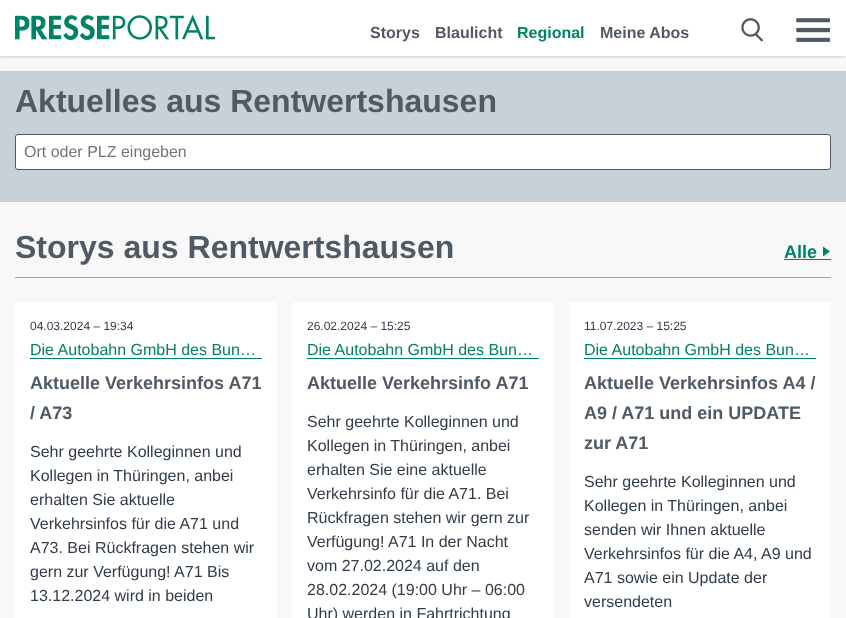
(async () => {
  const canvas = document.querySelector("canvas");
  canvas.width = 846;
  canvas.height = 618;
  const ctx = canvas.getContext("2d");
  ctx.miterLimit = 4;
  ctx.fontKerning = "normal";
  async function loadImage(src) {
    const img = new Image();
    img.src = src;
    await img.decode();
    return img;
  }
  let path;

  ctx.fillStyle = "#f8f8f8";
  ctx.fillRect(0, 0, 846, 618);
  ctx.fillStyle = "rgba(79, 90, 102, 0.16)";
  ctx.filter = "blur(1px)";
  ctx.beginPath();
  ctx.rect(0, 1, 846, 56);
  ctx.fill();
  ctx.filter = "none";
  ctx.fillStyle = "rgba(79, 90, 102, 0.1)";
  ctx.filter = "blur(1px)";
  ctx.beginPath();
  ctx.rect(0, 1, 846, 56);
  ctx.fill();
  ctx.filter = "none";
  ctx.fillStyle = "#ffffff";
  ctx.fillRect(0, 0, 846, 56);
  ctx.drawImage(await loadImage("img/1.png"), 15, 14, 200, 26);
  ctx.drawImage(await loadImage("img/2.png"), 741, 18, 23, 24);
  ctx.drawImage(await loadImage("img/3.png"), 796, 18, 34, 24);
  ctx.fillStyle = "#c7d2d6";
  ctx.fillRect(0, 71, 846, 131);
  ctx.fillStyle = "#ffffff";
  ctx.beginPath();
  ctx.roundRect(15.5, 134.5, 815, 35, 2.5);
  ctx.fill();
  ctx.strokeStyle = "#4f5a66";
  ctx.stroke();
  ctx.fillStyle = "#99a9b2";
  ctx.fillRect(15, 277, 816, 1);
  ctx.fillStyle = "#008264";
  ctx.fillRect(784, 259, 47, 1);
  path = new Path2D("M823 256.5V246.5L830 251.5Z");
  ctx.fill(path);
  ctx.fillStyle = "#ffffff";
  ctx.beginPath();
  ctx.roundRect(15, 302, 262, 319, 3);
  ctx.fill();
  ctx.fillStyle = "#008264";
  ctx.fillRect(30, 358, 232, 1);
  ctx.fillStyle = "#ffffff";
  ctx.beginPath();
  ctx.roundRect(292, 302, 262, 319, 3);
  ctx.fill();
  ctx.fillStyle = "#008264";
  ctx.fillRect(307, 358, 232, 1);
  ctx.fillStyle = "#ffffff";
  ctx.beginPath();
  ctx.roundRect(569, 302, 262, 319, 3);
  ctx.fill();
  ctx.fillStyle = "#008264";
  ctx.fillRect(584, 358, 232, 1);
  ctx.font = "bold 16px Liberation Sans";
  ctx.fillStyle = "#4f5a66";
  ctx.fillText("Storys", 370, 38);
  ctx.fillText("Blaulicht", 435, 38);
  ctx.fillStyle = "#008264";
  ctx.fillText("Regional", 517, 38);
  ctx.fillStyle = "#4f5a66";
  ctx.fillText("Meine Abos", 600, 38);
  ctx.font = "bold 32px Liberation Sans";
  ctx.fillText("Aktuelles aus Rentwertshausen", 15, 112);
  ctx.font = "16px Liberation Sans";
  ctx.fillStyle = "#757575";
  ctx.fillText("Ort oder PLZ eingeben", 24, 157);
  ctx.font = "bold 32px Liberation Sans";
  ctx.fillStyle = "#4f5a66";
  ctx.fillText("Storys aus Rentwertshausen", 15, 258);
  ctx.font = "bold 18px Liberation Sans";
  ctx.fillStyle = "#008264";
  ctx.fillText("Alle", 784, 258);
  ctx.font = "12px Liberation Sans";
  ctx.fillStyle = "#303c49";
  ctx.fillText("04.03.2024 – 19:34", 30, 330);
  ctx.font = "16px Liberation Sans";
  ctx.fillStyle = "#008264";
  ctx.fillText("Die Autobahn GmbH des Bun…", 30, 355);
  ctx.font = "bold 18px Liberation Sans";
  ctx.fillStyle = "#4f5a66";
  ctx.fillText("Aktuelle Verkehrsinfos A71", 30, 389);
  ctx.fillText("/ A73", 30, 419);
  ctx.font = "16px Liberation Sans";
  ctx.fillStyle = "#303c49";
  for (const [text, x, y] of [
    ["Sehr geehrte Kolleginnen und", 30, 457],
    ["Kollegen in Thüringen, anbei", 30, 481],
    ["erhalten Sie aktuelle", 30, 505],
    ["Verkehrsinfos für die A71 und", 30, 529],
    ["A73. Bei Rückfragen stehen wir", 30, 553],
    ["gern zur Verfügung! A71 Bis", 30, 577],
    ["13.12.2024 wird in beiden", 30, 601],
  ]) {
    ctx.fillText(text, x, y);
  }
  ctx.font = "12px Liberation Sans";
  ctx.fillText("26.02.2024 – 15:25", 307, 330);
  ctx.font = "16px Liberation Sans";
  ctx.fillStyle = "#008264";
  ctx.fillText("Die Autobahn GmbH des Bun…", 307, 355);
  ctx.font = "bold 18px Liberation Sans";
  ctx.fillStyle = "#4f5a66";
  ctx.fillText("Aktuelle Verkehrsinfo A71", 307, 389);
  ctx.font = "16px Liberation Sans";
  ctx.fillStyle = "#303c49";
  for (const [text, x, y] of [
    ["Sehr geehrte Kolleginnen und", 307, 427],
    ["Kollegen in Thüringen, anbei", 307, 451],
    ["erhalten Sie eine aktuelle", 307, 475],
    ["Verkehrsinfo für die A71. Bei", 307, 499],
    ["Rückfragen stehen wir gern zur", 307, 523],
    ["Verfügung! A71 In der Nacht", 307, 547],
    ["vom 27.02.2024 auf den", 307, 571],
    ["28.02.2024 (19:00 Uhr – 06:00", 307, 595],
    ["Uhr) werden in Fahrtrichtung", 307, 619],
  ]) {
    ctx.fillText(text, x, y);
  }
  ctx.font = "12px Liberation Sans";
  ctx.fillText("11.07.2023 – 15:25", 584, 330);
  ctx.font = "16px Liberation Sans";
  ctx.fillStyle = "#008264";
  ctx.fillText("Die Autobahn GmbH des Bun…", 584, 355);
  ctx.font = "bold 18px Liberation Sans";
  ctx.fillStyle = "#4f5a66";
  for (const [text, x, y] of [
    ["Aktuelle Verkehrsinfos A4 /", 584, 389],
    ["A9 / A71 und ein UPDATE", 584, 419],
    ["zur A71", 584, 449],
  ]) {
    ctx.fillText(text, x, y);
  }
  ctx.font = "16px Liberation Sans";
  ctx.fillStyle = "#303c49";
  for (const [text, x, y] of [
    ["Sehr geehrte Kolleginnen und", 584, 487],
    ["Kollegen in Thüringen, anbei", 584, 511],
    ["senden wir Ihnen aktuelle", 584, 535],
    ["Verkehrsinfos für die A4, A9 und", 584, 559],
    ["A71 sowie ein Update der", 584, 583],
    ["versendeten", 584, 607],
  ]) {
    ctx.fillText(text, x, y);
  }
})();
